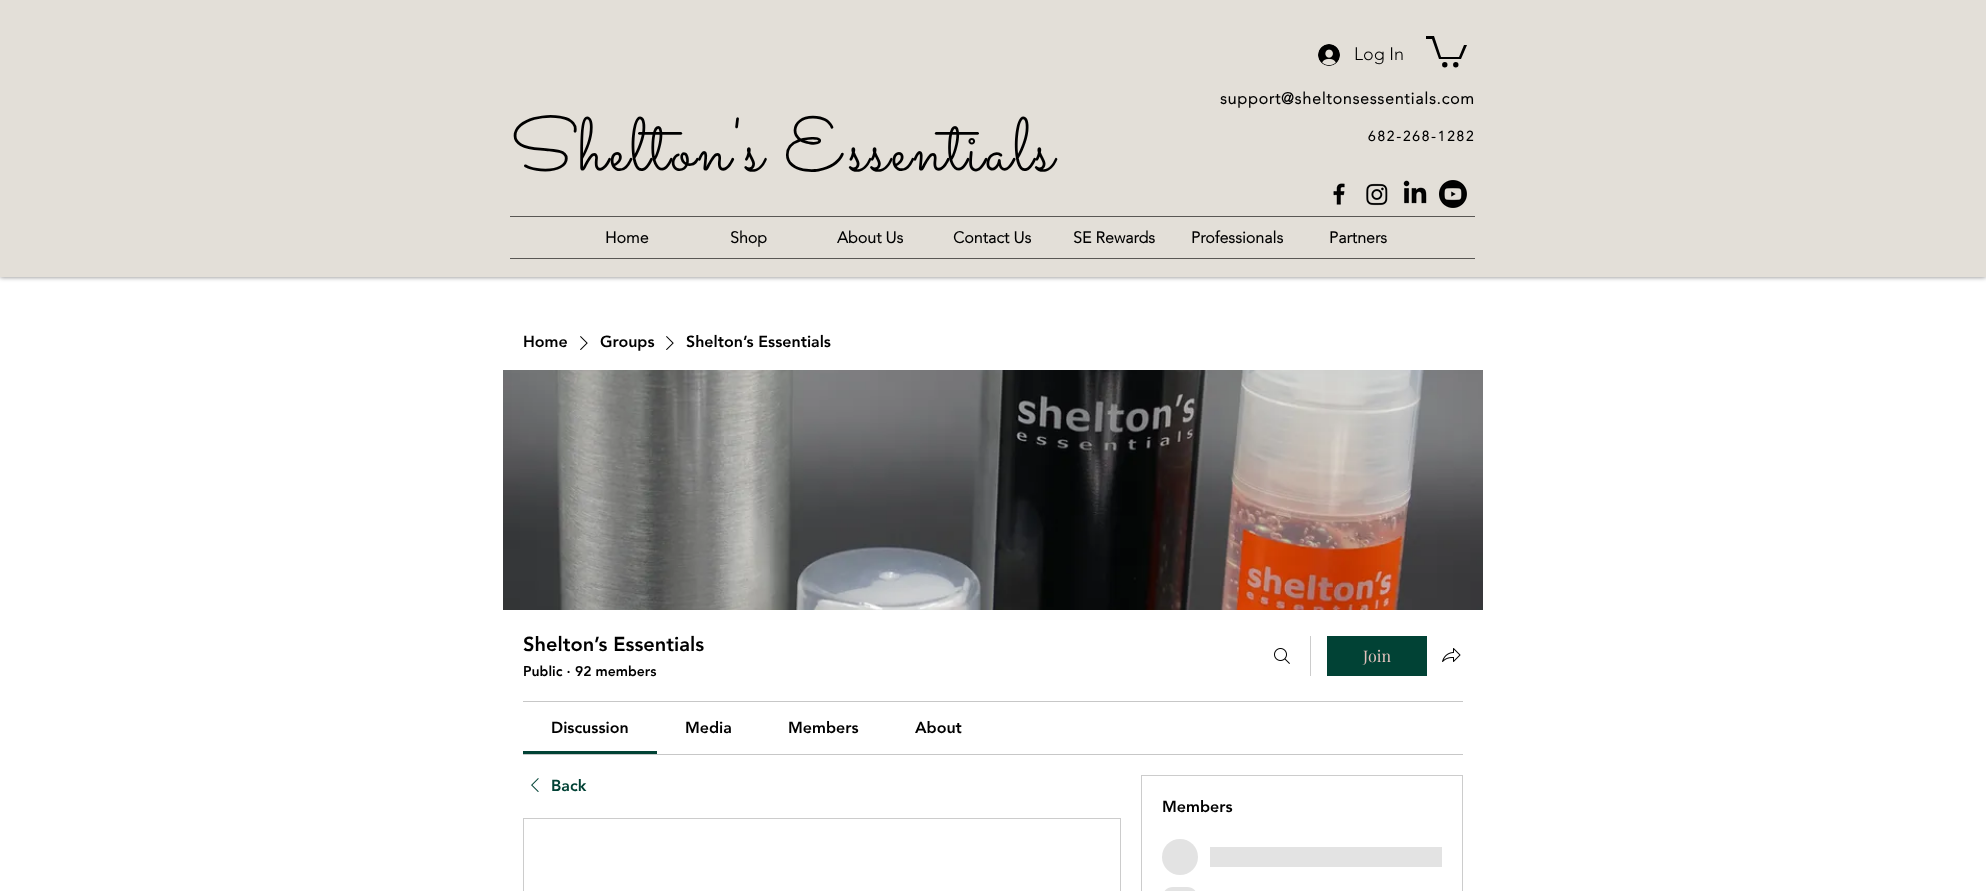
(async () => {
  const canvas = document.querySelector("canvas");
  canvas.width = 1986;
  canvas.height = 891;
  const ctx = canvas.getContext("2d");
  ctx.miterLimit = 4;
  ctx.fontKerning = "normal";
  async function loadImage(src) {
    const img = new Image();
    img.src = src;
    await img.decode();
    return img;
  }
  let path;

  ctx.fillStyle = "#ffffff";
  ctx.fillRect(0, 0, 1986, 891);
  ctx.fillStyle = "rgba(0, 0, 0, 0.5)";
  ctx.filter = "blur(2.5px)";
  ctx.beginPath();
  ctx.rect(0, 0, 1986, 277);
  ctx.fill();
  ctx.filter = "none";
  ctx.fillStyle = "#e3dfd8";
  ctx.fillRect(0, 0, 1986, 277);
  ctx.drawImage(await loadImage("img/1.png"), 1318, 44, 22, 22);
  ctx.fillStyle = "#000000";
  path = new Path2D("M1467 45L1461 59H1439L1432 39H1426V36H1434L1441 57H1459L1464 45");
  ctx.fill(path);
  ctx.beginPath();
  ctx.arc(1455.8, 64.7, 2.7, 0, Math.PI * 2);
  ctx.fill();
  ctx.beginPath();
  ctx.arc(1444.8, 64.7, 2.7, 0, Math.PI * 2);
  ctx.fill();
  ctx.drawImage(await loadImage("img/2.png"), 1333, 183, 12, 22);
  ctx.drawImage(await loadImage("img/3.png"), 1366, 183, 22, 23);
  ctx.drawImage(await loadImage("img/4.png"), 1403, 180, 24, 24);
  ctx.drawImage(await loadImage("img/5.png"), 1439, 180, 28, 28);
  ctx.fillStyle = "#595754";
  ctx.fillRect(510, 216, 965, 1);
  ctx.fillRect(510, 258, 965, 1);
  ctx.drawImage(await loadImage("img/6.png"), 580, 336, 8, 14);
  ctx.drawImage(await loadImage("img/6.png"), 666, 336, 8, 14);
  ctx.drawImage(await loadImage("img/7.png"), 503, 370, 980, 240);
  ctx.drawImage(await loadImage("img/8.png"), 1274, 648, 16, 16);
  ctx.fillStyle = "#cccccc";
  ctx.fillRect(1310, 636, 1, 40);
  ctx.fillStyle = "#014235";
  ctx.fillRect(1327, 636, 100, 40);
  ctx.drawImage(await loadImage("img/9.png"), 1442, 648, 19, 14);
  for (const [x, y, w, h, color] of [
    [523, 701, 940, 1, "#c7c7c7"],
    [523, 754, 940, 1, "#c7c7c7"],
    [523, 751, 134, 3, "#014235"],
  ]) {
    ctx.fillStyle = color;
    ctx.fillRect(x, y, w, h);
  }
  ctx.drawImage(await loadImage("img/10.png"), 531, 778, 8, 14);
  ctx.strokeStyle = "#cccccc";
  ctx.strokeRect(523.5, 818.5, 597, 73);
  ctx.strokeRect(1141.5, 775.5, 321, 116);
  ctx.fillStyle = "#e3e3e3";
  ctx.beginPath();
  ctx.arc(1180, 857, 18, 0, Math.PI * 2);
  ctx.fill();
  ctx.fillRect(1210, 847, 232, 20);
  ctx.beginPath();
  ctx.roundRect(1162, 887, 36, 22, 18);
  ctx.fill();
  ctx.font = "300 18px 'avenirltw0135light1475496'";
  ctx.fillStyle = "#000000";
  ctx.fillText("Log In", 1354, 60);
  ctx.letterSpacing = "0.8px";
  ctx.font = "bold 16px 'avenirltw0135light1475496'";
  ctx.fillText("support@sheltonsessentials.com", 1220, 104);
  ctx.letterSpacing = "2.25px";
  ctx.font = "75px Sacramento";
  ctx.fillText("Shelton's Essentials", 510, 170);
  ctx.letterSpacing = "2.1px";
  ctx.font = "bold 14px 'avenirltw0135light1475496'";
  ctx.fillText("682-268-1282", 1368, 141);
  ctx.letterSpacing = "0px";
  ctx.font = "bold 16px 'avenirltw0135light1475496'";
  for (const [text, x, y] of [
    ["Home", 605, 243],
    ["Shop", 730, 243],
    ["About Us", 837, 243],
    ["Contact Us", 953, 243],
    ["SE Rewards", 1073, 243],
    ["Professionals", 1191, 243],
    ["Partners", 1329, 243],
  ]) {
    ctx.fillText(text, x, y);
  }
  ctx.font = "900 16px 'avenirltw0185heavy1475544'";
  for (const [text, x, y] of [
    ["Home", 523, 347],
    ["Groups", 600, 347],
    ["Shelton’s Essentials", 686, 347],
  ]) {
    ctx.fillText(text, x, y);
  }
  ctx.font = "900 20px 'avenirltw0185heavy1475544'";
  ctx.fillText("Shelton’s Essentials", 523, 651);
  ctx.font = "900 14px 'avenirltw0185heavy1475544'";
  ctx.fillText("Public · 92 members", 523, 676);
  ctx.font = "16px Playfair Display";
  ctx.fillStyle = "#e1c1bc";
  ctx.fillText("Join", 1363, 662);
  ctx.font = "900 16px 'avenirltw0185heavy1475544'";
  ctx.fillStyle = "#000000";
  for (const [text, x, y] of [
    ["Discussion", 551, 733],
    ["Media", 685, 733],
    ["Members", 788, 733],
    ["About", 915, 733],
  ]) {
    ctx.fillText(text, x, y);
  }
  ctx.fillStyle = "#014235";
  ctx.fillText("Back", 551, 791);
  ctx.fillStyle = "#000000";
  ctx.fillText("Members", 1162, 812);
})();
